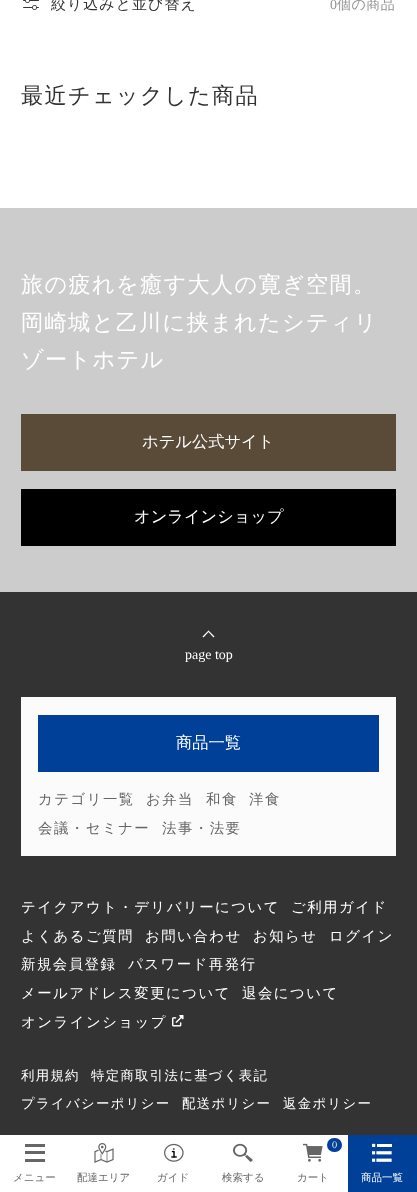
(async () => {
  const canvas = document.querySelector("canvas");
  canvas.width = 417;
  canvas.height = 1192;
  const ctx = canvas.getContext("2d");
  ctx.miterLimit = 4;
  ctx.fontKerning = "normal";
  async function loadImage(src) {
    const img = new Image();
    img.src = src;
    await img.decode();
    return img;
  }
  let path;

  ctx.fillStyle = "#ffffff";
  ctx.fillRect(0, 0, 417, 1192);
  ctx.drawImage(await loadImage("img/1.png"), 23, 0, 16, 10);
  for (const [x, y, w, h, color] of [
    [0, 208, 417, 384, "#cccccc"],
    [21, 414, 375, 57, "#5a4b38"],
    [21, 489, 375, 57, "#000000"],
    [0, 592, 417, 543, "#333333"],
  ]) {
    ctx.fillStyle = color;
    ctx.fillRect(x, y, w, h);
  }
  ctx.fillStyle = "#ffffff";
  path = new Path2D("M202.5 636.5L208.5 630.5L209 631.5L203.5 637.5Z");
  ctx.fill(path);
  path = new Path2D("M208 631.5L208.5 630.5L214.5 636.5L213.5 637.5Z");
  ctx.fill(path);
  ctx.fillStyle = "#fbfbfb";
  ctx.fillRect(21, 697, 375, 159);
  ctx.fillStyle = "#014099";
  ctx.fillRect(38, 715, 341, 57);
  ctx.drawImage(await loadImage("img/2.png"), 172, 1015, 12, 12);
  for (const [x, y, w, h, color] of [
    [25, 1144, 20, 3, "#666666"],
    [25, 1151, 20, 3, "#666666"],
    [25, 1159, 20, 3, "#666666"],
  ]) {
    ctx.fillStyle = color;
    ctx.fillRect(x, y, w, h);
  }
  ctx.drawImage(await loadImage("img/3.png"), 94, 1143, 20, 20);
  ctx.drawImage(await loadImage("img/4.png"), 164, 1143, 20, 19);
  ctx.drawImage(await loadImage("img/5.png"), 233, 1143, 20, 19);
  ctx.drawImage(await loadImage("img/6.png"), 303, 1143, 20, 19);
  ctx.fillStyle = "#014099";
  ctx.beginPath();
  ctx.roundRect(327, 1138, 15, 14, 7);
  ctx.fill();
  ctx.fillRect(348, 1135, 69, 57);
  ctx.drawImage(await loadImage("img/7.png"), 372, 1143, 20, 19);
  ctx.letterSpacing = "1px";
  ctx.font = "500 15px WenQuanYi Zen Hei";
  ctx.fillStyle = "#333333";
  ctx.fillText("絞り込みと並び替え", 51, 9);
  ctx.letterSpacing = "0.5px";
  ctx.font = "14px Liberation Serif";
  ctx.fillStyle = "#949494";
  ctx.fillText("0", 330, 9);
  ctx.font = "500 14px WenQuanYi Zen Hei";
  ctx.fillText("個の商品", 337, 9);
  ctx.letterSpacing = "1.3px";
  ctx.font = "500 22.2px WenQuanYi Zen Hei";
  ctx.fillStyle = "#333333";
  ctx.fillText("最近チェックした商品", 21, 103);
  ctx.fillStyle = "#ffffff";
  for (const [text, x, y] of [
    ["旅の疲れを癒す大人の寛ぎ空間。", 21, 292],
    ["岡崎城と乙川に挟まれたシティリ", 21, 330],
    ["ゾートホテル", 21, 367],
  ]) {
    ctx.fillText(text, x, y);
  }
  ctx.letterSpacing = "0px";
  ctx.font = "500 16.25px WenQuanYi Zen Hei";
  ctx.fillText("ホテル公式サイト", 142, 447);
  ctx.fillText("オンラインショップ", 134, 522);
  ctx.font = "14px Liberation Serif";
  ctx.fillText("page top", 185, 659);
  ctx.font = "500 16.25px WenQuanYi Zen Hei";
  ctx.fillText("商品一覧", 176, 748);
  ctx.letterSpacing = "1.5px";
  ctx.font = "500 14.4px WenQuanYi Zen Hei";
  ctx.fillStyle = "#666666";
  for (const [text, x, y] of [
    ["カテゴリ一覧", 38, 804],
    ["お弁当", 146, 804],
    ["和食", 206, 804],
    ["洋食", 249, 804],
    ["会議・セミナー", 38, 833],
    ["法事・法要", 162, 833],
  ]) {
    ctx.fillText(text, x, y);
  }
  ctx.fillStyle = "#ffffff";
  for (const [text, x, y] of [
    ["テイクアウト・デリバリーについて", 21, 912],
    ["ご利用ガイド", 291, 912],
    ["よくあるご質問", 21, 941],
    ["お問い合わせ", 145, 941],
    ["お知らせ", 253, 941],
    ["ログイン", 329, 941],
    ["新規会員登録", 21, 969],
    ["パスワード再発行", 128, 969],
    ["メールアドレス変更について", 21, 998],
    ["退会について", 242, 998],
    ["オンラインショップ", 21, 1027],
  ]) {
    ctx.fillText(text, x, y);
  }
  ctx.letterSpacing = "1.3px";
  ctx.font = "500 13.4px WenQuanYi Zen Hei";
  for (const [text, x, y] of [
    ["利用規約", 21, 1080],
    ["特定商取引法に基づく表記", 91, 1080],
    ["プライバシーポリシー", 21, 1108],
    ["配送ポリシー", 182, 1108],
    ["返金ポリシー", 283, 1108],
  ]) {
    ctx.fillText(text, x, y);
  }
  ctx.letterSpacing = "0px";
  ctx.font = "500 10.5px WenQuanYi Zen Hei";
  ctx.fillStyle = "#666666";
  for (const [text, x, y] of [
    ["メニュー", 13, 1181],
    ["配達エリア", 77, 1181],
    ["ガイド", 157, 1181],
    ["検索する", 222, 1181],
  ]) {
    ctx.fillText(text, x, y);
  }
  ctx.font = "10px Cardo";
  ctx.fillStyle = "#ffffff";
  ctx.fillText("0", 332, 1148);
  ctx.font = "500 10.5px WenQuanYi Zen Hei";
  ctx.fillStyle = "#666666";
  ctx.fillText("カート", 297, 1181);
  ctx.fillStyle = "#ffffff";
  ctx.fillText("商品一覧", 361, 1181);
})();
